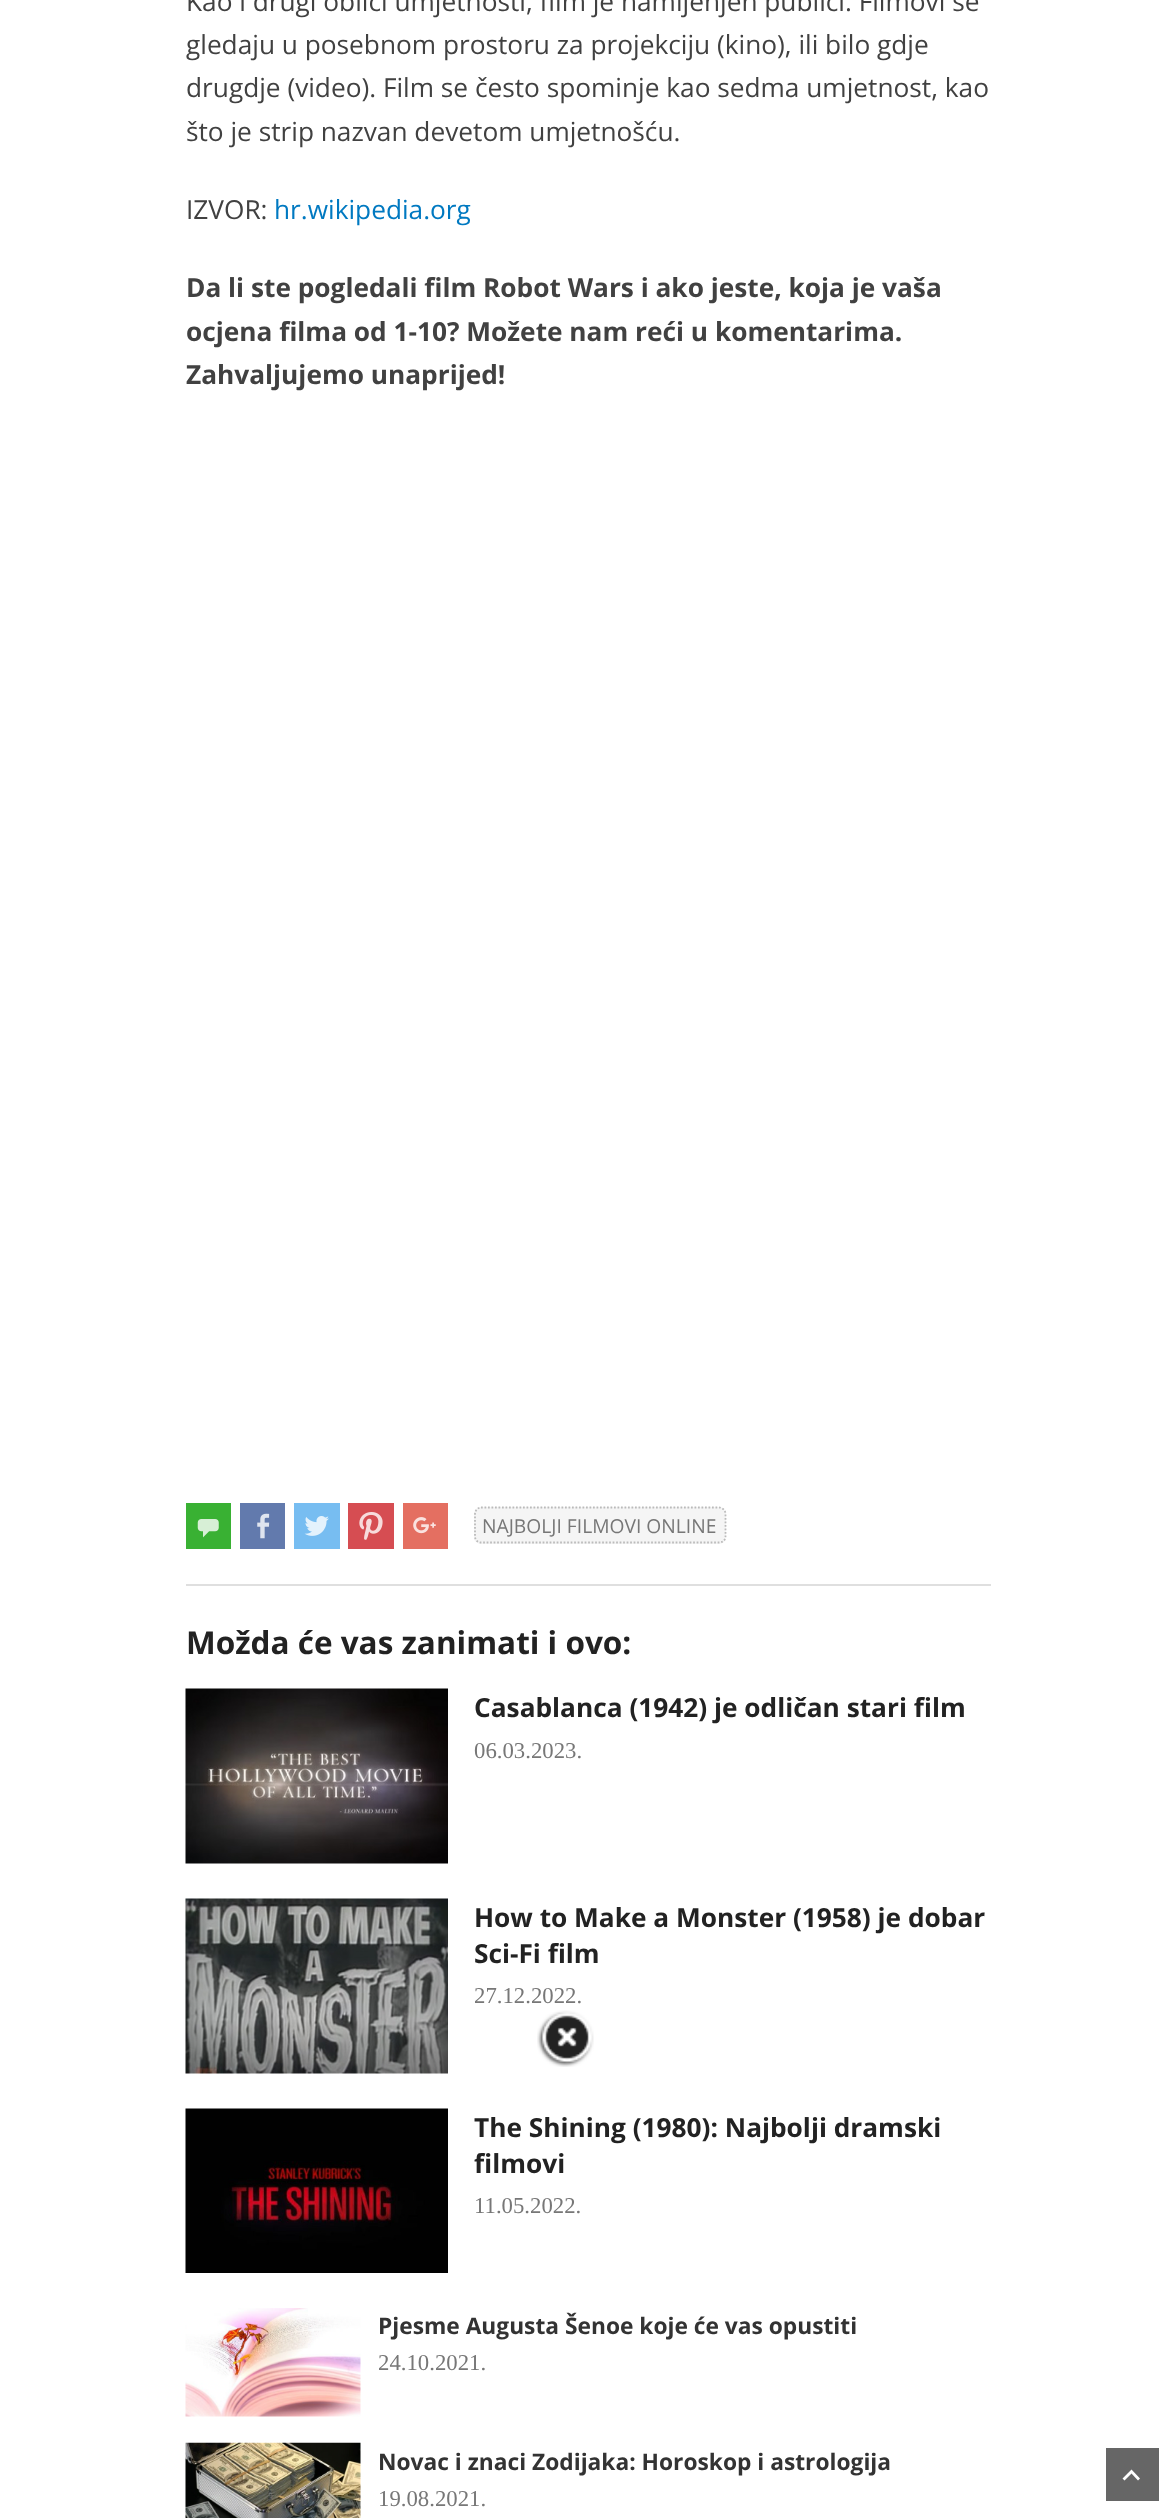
(async () => {
  const canvas = document.querySelector("canvas");
  canvas.width = 1175;
  canvas.height = 2518;
  const ctx = canvas.getContext("2d");
  ctx.miterLimit = 4;
  ctx.fontKerning = "normal";
  async function loadImage(src) {
    const img = new Image();
    img.src = src;
    await img.decode();
    return img;
  }
  let path;

  ctx.fillStyle = "#ffffff";
  ctx.fillRect(0, 0, 1175, 2518);
  ctx.fillStyle = "#39b133";
  ctx.fillRect(186, 1503, 45, 46);
  ctx.drawImage(await loadImage("img/1.png"), 197, 1519, 22, 19);
  ctx.fillStyle = "#627aad";
  ctx.fillRect(240, 1503, 45, 46);
  ctx.drawImage(await loadImage("img/2.png"), 257, 1513, 13, 26);
  ctx.fillStyle = "#77bdf1";
  ctx.fillRect(294, 1503, 46, 46);
  ctx.drawImage(await loadImage("img/3.png"), 304, 1516, 25, 20);
  ctx.fillStyle = "#d64d52";
  ctx.fillRect(348, 1503, 46, 46);
  ctx.drawImage(await loadImage("img/4.png"), 359, 1512, 24, 28);
  ctx.fillStyle = "#e46f61";
  ctx.fillRect(403, 1503, 45, 46);
  ctx.drawImage(await loadImage("img/5.png"), 413, 1517, 23, 17);
  ctx.fillStyle = "#f5f5f5";
  ctx.beginPath();
  ctx.roundRect(474, 1507, 252, 37, 7);
  ctx.fill();
  path = new Path2D("M481 1507.5H719C722.5 1507.5 725.5 1510.5 725.5 1514V1536.5C725.5 1540 722.5 1542.5 719 1542.5H481C478 1542.5 475 1540 475 1536.5V1514C475 1510.5 478 1507.5 481 1507.5Z");
  ctx.strokeStyle = "#bbbbbb";
  ctx.lineWidth = 1.8;
  ctx.setLineDash([1.75, 1.75]);
  ctx.stroke(path);
  ctx.fillStyle = "#dfdfdf";
  ctx.fillRect(186, 1584, 805, 2);
  ctx.drawImage(await loadImage("img/6.png"), 185, 1688, 263, 176);
  ctx.drawImage(await loadImage("img/7.png"), 185, 1898, 263, 176);
  ctx.drawImage(await loadImage("img/8.png"), 185, 2108, 263, 165);
  ctx.drawImage(await loadImage("img/9.png"), 185, 2308, 176, 109);
  ctx.drawImage(await loadImage("img/10.png"), 185, 2442, 176, 76);
  ctx.drawImage(await loadImage("img/11.png"), 537, 2010, 57, 57);
  ctx.fillStyle = "#666666";
  ctx.fillRect(1106, 2448, 53, 53);
  ctx.fillStyle = "#ffffff";
  path = new Path2D("M1138 2480.5L1131.5 2473.5L1124.5 2480.5L1122.5 2478.5L1131.5 2469.5L1140 2478.5Z");
  ctx.fill(path);
  ctx.font = "26.25px Open Sans";
  ctx.fillStyle = "#414141";
  for (const [text, x, y] of [
    ["Kao i drugi oblici umjetnosti, film je namijenjen publici. Filmovi se", 186, 11],
    ["gledaju u posebnom prostoru za projekciju (kino), ili bilo gdje", 186, 54],
    ["drugdje (video). Film se često spominje kao sedma umjetnost, kao", 186, 97],
    ["što je strip nazvan devetom umjetnošću.", 186, 141],
    ["IZVOR:", 186, 219],
  ]) {
    ctx.fillText(text, x, y);
  }
  ctx.fillStyle = "#0079c1";
  ctx.fillText("hr.wikipedia.org", 274, 219);
  ctx.font = "bold 26.25px Open Sans";
  ctx.fillStyle = "#414141";
  for (const [text, x, y] of [
    ["Da li ste pogledali film Robot Wars i ako jeste, koja je vaša", 186, 297],
    ["ocjena filma od 1-10? Možete nam reći u komentarima.", 186, 341],
    ["Zahvaljujemo unaprijed!", 186, 384],
  ]) {
    ctx.fillText(text, x, y);
  }
  ctx.font = "19.25px Open Sans";
  ctx.fillStyle = "#777777";
  ctx.fillText("NAJBOLJI FILMOVI ONLINE", 482, 1533);
  ctx.font = "bold 31.5px Open Sans";
  ctx.fillStyle = "#222222";
  ctx.fillText("Možda će vas zanimati i ovo:", 186, 1654);
  ctx.font = "bold 26.25px Open Sans";
  ctx.fillText("Casablanca (1942) je odličan stari film", 474, 1717);
  ctx.font = "22.75px Liberation Serif";
  ctx.fillStyle = "#777777";
  ctx.fillText("06.03.2023.", 474, 1758);
  ctx.font = "bold 26.25px Open Sans";
  ctx.fillStyle = "#222222";
  ctx.fillText("How to Make a Monster (1958) je dobar", 474, 1927);
  ctx.fillText("Sci-Fi film", 474, 1963);
  ctx.font = "22.75px Liberation Serif";
  ctx.fillStyle = "#777777";
  ctx.fillText("27.12.2022.", 474, 2003);
  ctx.font = "bold 26.25px Open Sans";
  ctx.fillStyle = "#222222";
  ctx.fillText("The Shining (1980): Najbolji dramski", 474, 2137);
  ctx.fillText("filmovi", 474, 2173);
  ctx.font = "22.75px Liberation Serif";
  ctx.fillStyle = "#777777";
  ctx.fillText("11.05.2022.", 474, 2213);
  ctx.font = "bold 22.75px Open Sans";
  ctx.fillStyle = "#333333";
  ctx.fillText("Pjesme Augusta Šenoe koje će vas opustiti", 378, 2334);
  ctx.font = "22.75px Liberation Serif";
  ctx.fillStyle = "#777777";
  ctx.fillText("24.10.2021.", 378, 2370);
  ctx.font = "bold 22.75px Open Sans";
  ctx.fillStyle = "#333333";
  ctx.fillText("Novac i znaci Zodijaka: Horoskop i astrologija", 378, 2470);
  ctx.font = "22.75px Liberation Serif";
  ctx.fillStyle = "#777777";
  ctx.fillText("19.08.2021.", 378, 2506);
})();
